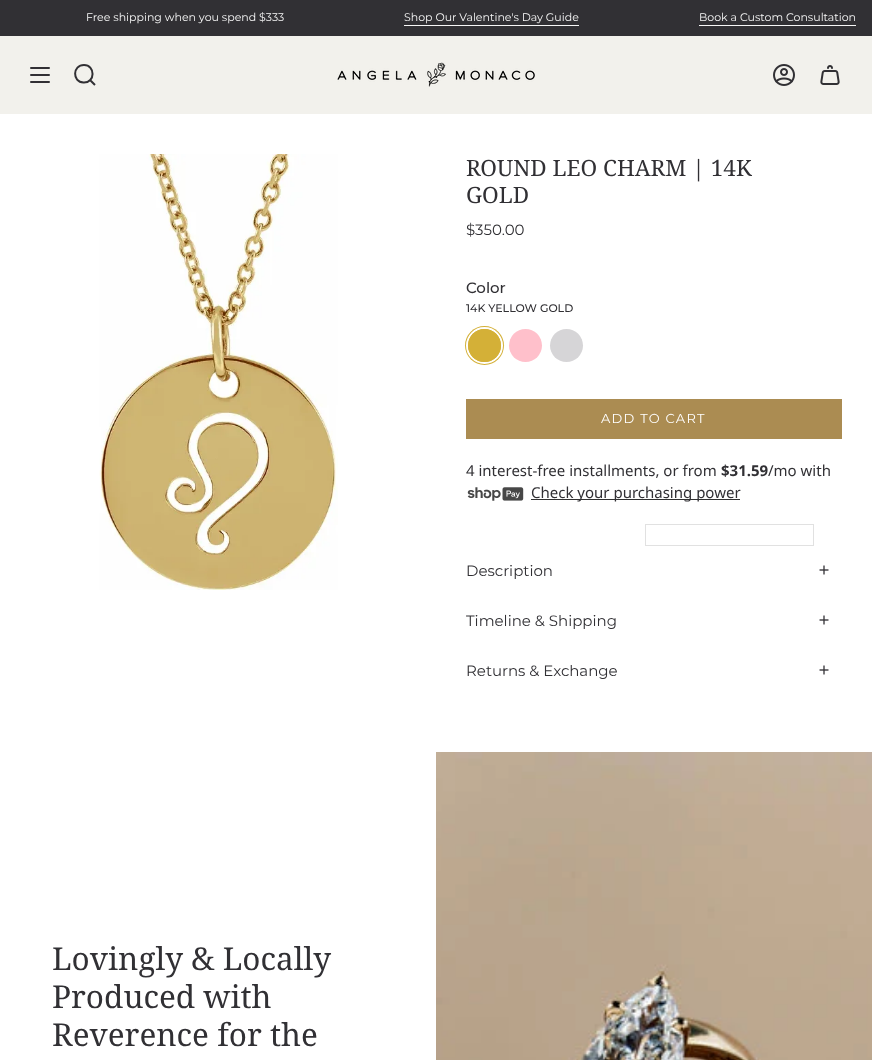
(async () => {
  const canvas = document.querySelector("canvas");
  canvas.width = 872;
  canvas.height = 1060;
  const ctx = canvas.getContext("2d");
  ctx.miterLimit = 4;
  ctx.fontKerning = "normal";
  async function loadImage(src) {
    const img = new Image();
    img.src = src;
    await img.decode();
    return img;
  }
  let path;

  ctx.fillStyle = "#ffffff";
  ctx.fillRect(0, 0, 872, 1060);
  for (const [x, y, w, h, color] of [
    [0, 0, 872, 36, "#313034"],
    [404, 25, 175, 1, "#f7f7f7"],
    [699, 25, 157, 1, "#f7f7f7"],
    [0, 36, 872, 78, "#f2f1ec"],
  ]) {
    ctx.fillStyle = color;
    ctx.fillRect(x, y, w, h);
  }
  path = new Path2D("M31 68H49M31 75H49M31 82H49");
  ctx.strokeStyle = "#313034";
  ctx.lineWidth = 2;
  ctx.lineCap = "round";
  ctx.lineJoin = "round";
  ctx.stroke(path);
  path = new Path2D("M84 65C95.5 65 95.5 83 83.5 82.5C72 82 72.5 65 84 65ZM90 80L95 85");
  ctx.lineCap = "butt";
  ctx.lineJoin = "miter";
  ctx.stroke(path);
  ctx.drawImage(await loadImage("img/1.png"), 337, 62, 198, 25);
  ctx.drawImage(await loadImage("img/2.png"), 773, 64, 22, 22);
  ctx.drawImage(await loadImage("img/3.png"), 820, 65, 20, 20);
  ctx.drawImage(await loadImage("img/4.png"), 99, 154, 239, 436);
  ctx.fillStyle = "#d4b037";
  ctx.beginPath();
  ctx.arc(484.5, 345.5, 19.5, 0, Math.PI * 2);
  ctx.fill();
  ctx.beginPath();
  ctx.arc(484.5, 345.5, 17.5, 0, Math.PI * 2);
  ctx.strokeStyle = "#ffffff";
  ctx.stroke();
  ctx.beginPath();
  ctx.arc(484.5, 345.5, 16.5, 0, Math.PI * 2);
  ctx.fill();
  ctx.fillStyle = "#ffc0cb";
  ctx.beginPath();
  ctx.arc(525.5, 345.5, 16.5, 0, Math.PI * 2);
  ctx.fill();
  ctx.fillStyle = "#d6d5d7";
  ctx.beginPath();
  ctx.arc(566.5, 345.5, 16.5, 0, Math.PI * 2);
  ctx.fill();
  ctx.fillStyle = "#ab8c52";
  ctx.fillRect(466, 399, 376, 40);
  ctx.drawImage(await loadImage("img/5.png"), 467, 487, 57, 14);
  ctx.fillStyle = "#313131";
  ctx.fillRect(531, 499, 209, 1);
  ctx.strokeStyle = "#e1e1e1";
  ctx.lineWidth = 1;
  ctx.strokeRect(645.5, 524.5, 168, 21);
  ctx.drawImage(await loadImage("img/6.png"), 819, 565, 10, 10);
  ctx.drawImage(await loadImage("img/6.png"), 819, 615, 10, 10);
  ctx.drawImage(await loadImage("img/6.png"), 819, 665, 10, 10);
  ctx.drawImage(await loadImage("img/7.png"), 436, 752, 436, 308);
  ctx.font = "11px Montserrat";
  ctx.fillStyle = "#f7f7f7";
  for (const [text, x, y] of [
    ["Free shipping when you spend $333", 86, 21],
    ["Shop Our Valentine's Day Guide", 404, 21],
    ["Book a Custom Consultation", 699, 21],
  ]) {
    ctx.fillText(text, x, y);
  }
  ctx.font = "22.5px Noto Serif";
  ctx.fillStyle = "#313034";
  ctx.fillText("ROUND LEO CHARM | 14K", 466, 176);
  ctx.fillText("GOLD", 466, 203);
  ctx.font = "15px Montserrat";
  ctx.fillText("$350.00", 466, 235);
  ctx.font = "500 15px Montserrat";
  ctx.fillText("Color", 466, 293);
  ctx.font = "500 11px Montserrat";
  ctx.fillText("14K YELLOW GOLD", 466, 312);
  ctx.letterSpacing = "1.25px";
  ctx.font = "13px Montserrat";
  ctx.fillStyle = "#ffffff";
  ctx.fillText("ADD TO CART", 601, 423);
  ctx.letterSpacing = "0px";
  ctx.font = "15px Noto Sans";
  ctx.fillStyle = "#313034";
  ctx.fillText("4 interest-free installments, or from", 466, 476);
  ctx.font = "bold 15px Noto Sans";
  ctx.fillText("$31.59", 721, 476);
  ctx.font = "15px Noto Sans";
  ctx.fillText("/mo with", 768, 476);
  ctx.fillText("Check your purchasing power", 531, 498);
  ctx.font = "15px Montserrat";
  for (const [text, x, y] of [
    ["Description", 466, 576],
    ["Timeline & Shipping", 466, 626],
    ["Returns & Exchange", 466, 676],
  ]) {
    ctx.fillText(text, x, y);
  }
  ctx.font = "31.5px Noto Serif";
  for (const [text, x, y] of [
    ["Lovingly & Locally", 52, 970],
    ["Produced with", 52, 1008],
    ["Reverence for the", 52, 1046],
  ]) {
    ctx.fillText(text, x, y);
  }
})();
